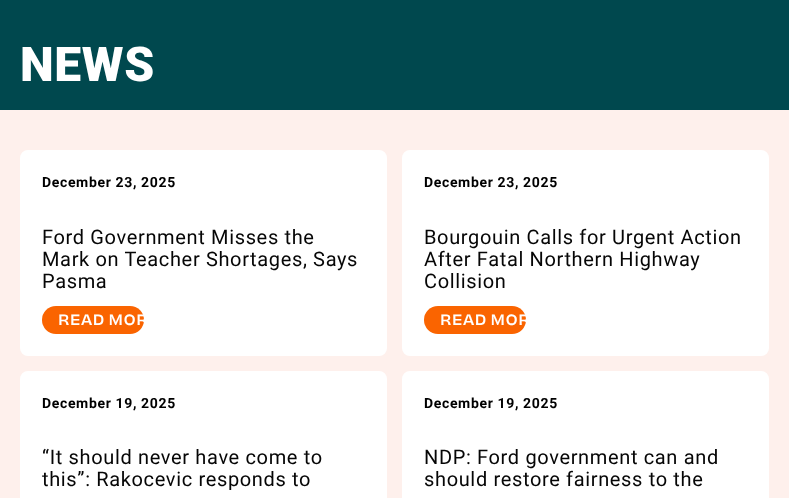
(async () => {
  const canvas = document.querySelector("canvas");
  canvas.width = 789;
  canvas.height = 498;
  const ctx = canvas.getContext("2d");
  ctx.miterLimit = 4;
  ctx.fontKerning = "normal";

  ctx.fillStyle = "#fef0ec";
  ctx.fillRect(0, 0, 789, 498);
  ctx.fillStyle = "#00484e";
  ctx.fillRect(0, 0, 789, 110);
  ctx.fillStyle = "#ffffff";
  ctx.beginPath();
  ctx.roundRect(26, 156, 355, 194, 2);
  ctx.fill();
  ctx.strokeStyle = "#ffffff";
  ctx.lineWidth = 12;
  ctx.stroke();
  ctx.fillStyle = "#fa6400";
  ctx.beginPath();
  ctx.roundRect(42, 306, 102, 28, 14);
  ctx.fill();
  ctx.fillStyle = "#ffffff";
  ctx.beginPath();
  ctx.roundRect(408, 156, 355, 194, 2);
  ctx.fill();
  ctx.stroke();
  ctx.fillStyle = "#fa6400";
  ctx.beginPath();
  ctx.roundRect(424, 306, 102, 28, 14);
  ctx.fill();
  ctx.fillStyle = "#ffffff";
  ctx.beginPath();
  ctx.roundRect(26, 377, 355, 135, 2);
  ctx.fill();
  ctx.stroke();
  ctx.beginPath();
  ctx.roundRect(408, 377, 355, 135, 2);
  ctx.fill();
  ctx.stroke();
  ctx.letterSpacing = "0.65px";
  ctx.font = "900 48px Roboto";
  ctx.fillText("NEWS", 20, 81);
  ctx.font = "bold 14px Roboto";
  ctx.fillStyle = "#000000";
  ctx.fillText("December 23, 2025", 42, 187);
  ctx.font = "20px Roboto";
  ctx.fillStyle = "#060606";
  for (const [text, x, y] of [
    ["Ford Government Misses the", 42, 244],
    ["Mark on Teacher Shortages, Says", 42, 266],
    ["Pasma", 42, 288],
  ]) {
    ctx.fillText(text, x, y);
  }
  ctx.wordSpacing = "-1px";
  ctx.font = "500 14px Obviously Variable";
  ctx.fillStyle = "#ffffff";
  ctx.fillText("READ MOR", 58, 325);
  ctx.wordSpacing = "0px";
  ctx.font = "bold 14px Roboto";
  ctx.fillStyle = "#000000";
  ctx.fillText("December 23, 2025", 424, 187);
  ctx.font = "20px Roboto";
  ctx.fillStyle = "#060606";
  for (const [text, x, y] of [
    ["Bourgouin Calls for Urgent Action", 424, 244],
    ["After Fatal Northern Highway", 424, 266],
    ["Collision", 424, 288],
  ]) {
    ctx.fillText(text, x, y);
  }
  ctx.wordSpacing = "-1px";
  ctx.font = "500 14px Obviously Variable";
  ctx.fillStyle = "#ffffff";
  ctx.fillText("READ MOR", 440, 325);
  ctx.wordSpacing = "0px";
  ctx.font = "bold 14px Roboto";
  ctx.fillStyle = "#000000";
  ctx.fillText("December 19, 2025", 42, 408);
  ctx.font = "20px Roboto";
  ctx.fillStyle = "#060606";
  ctx.fillText("“It should never have come to", 42, 464);
  ctx.fillText("this”: Rakocevic responds to", 42, 486);
  ctx.font = "bold 14px Roboto";
  ctx.fillStyle = "#000000";
  ctx.fillText("December 19, 2025", 424, 408);
  ctx.font = "20px Roboto";
  ctx.fillStyle = "#060606";
  ctx.fillText("NDP: Ford government can and", 424, 464);
  ctx.fillText("should restore fairness to the", 424, 486);
})();
